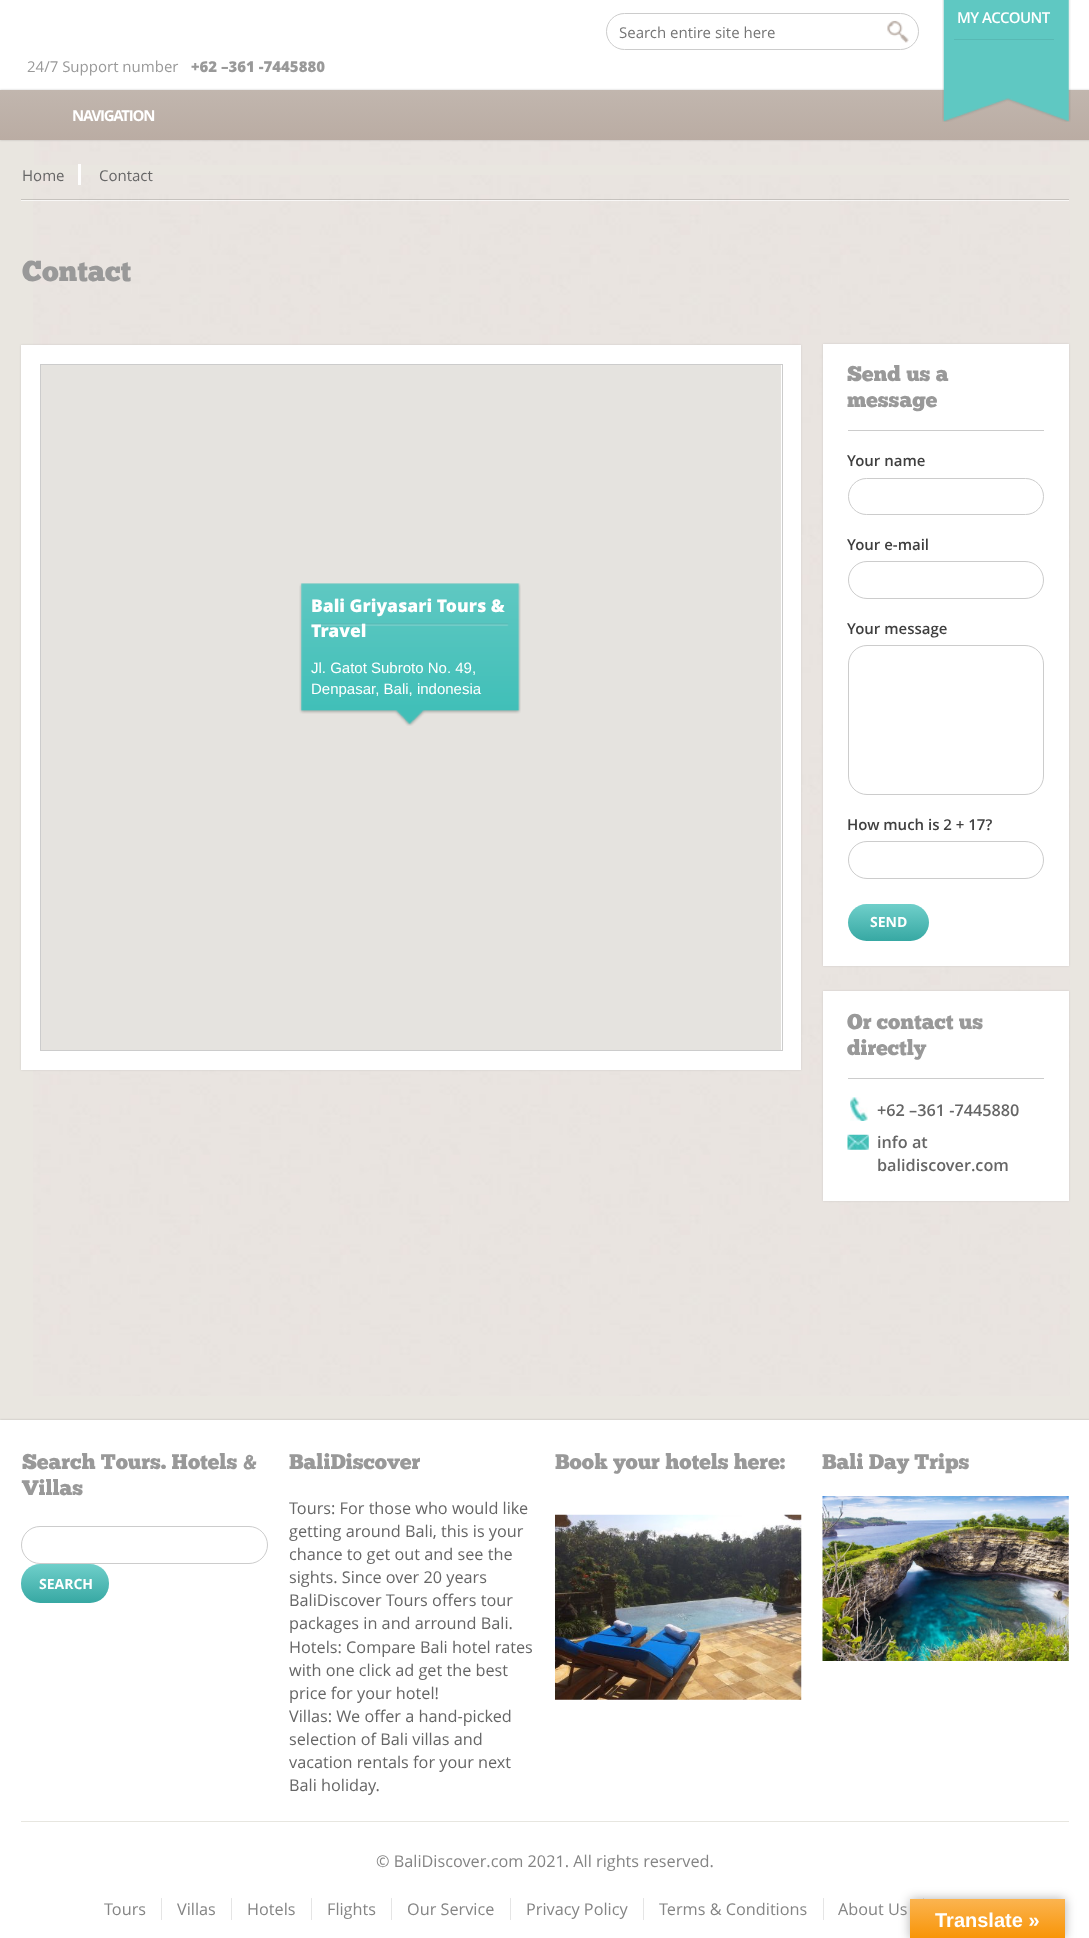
(async () => {
  const canvas = document.querySelector("canvas");
  canvas.width = 1089;
  canvas.height = 1938;
  const ctx = canvas.getContext("2d");
  ctx.miterLimit = 4;
  ctx.fontKerning = "normal";
  async function loadImage(src) {
    const img = new Image();
    img.src = src;
    await img.decode();
    return img;
  }
  let gradient, path;

  ctx.fillStyle = "#e9e6e0";
  ctx.fillRect(0, 0, 1089, 1938);
  ctx.drawImage(await loadImage("img/1.png"), 34, 140, 1036, 25);
  ctx.fillStyle = "#ffffff";
  ctx.fillRect(0, 0, 1089, 90);
  ctx.fillStyle = "rgba(0, 0, 0, 0.2)";
  ctx.filter = "blur(1px)";
  ctx.beginPath();
  ctx.rect(0, 90, 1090, 50);
  ctx.fill();
  ctx.filter = "none";
  gradient = ctx.createLinearGradient(545, 90, 545, 140);
  gradient.addColorStop(0, "#c1b6ae");
  gradient.addColorStop(1, "#baaca3");
  ctx.fillStyle = gradient;
  ctx.fillRect(0, 90, 1089, 50);
  ctx.drawImage(await loadImage("img/2.png"), 942, 0, 129, 122);
  ctx.fillStyle = "#58b9b4";
  ctx.fillRect(954, 39, 100, 1);
  ctx.beginPath();
  ctx.roundRect(606.5, 13.5, 312, 36, 18);
  ctx.strokeStyle = "#cccccc";
  ctx.stroke();
  ctx.drawImage(await loadImage("img/3.png"), 887, 20, 22, 23);
  ctx.drawImage(await loadImage("img/4.png"), 33, 175, 1037, 1221);
  ctx.fillStyle = "rgba(255, 255, 255, 0.7)";
  path = new Path2D("M21 166V201H1069V166V200H21Z");
  ctx.fill(path);
  ctx.fillStyle = "rgba(0, 0, 0, 0.15)";
  ctx.fillRect(21, 199, 1048, 1);
  ctx.fillStyle = "rgba(254, 254, 254, 0.96)";
  ctx.fillRect(78, 164, 3, 21);
  ctx.fillStyle = "rgba(0, 0, 0, 0.1)";
  ctx.filter = "blur(1px)";
  ctx.beginPath();
  ctx.rect(21, 345, 780, 725);
  ctx.fill();
  ctx.filter = "none";
  ctx.fillStyle = "#ffffff";
  ctx.fillRect(21, 345, 780, 725);
  ctx.strokeRect(40.5, 364.5, 742, 686);
  ctx.fillStyle = "#e5e3df";
  ctx.fillRect(41, 365, 740, 685);
  ctx.drawImage(await loadImage("img/5.png"), 299, 583, 222, 143);
  ctx.fillStyle = "rgba(0, 0, 0, 0.1)";
  ctx.filter = "blur(1px)";
  ctx.beginPath();
  ctx.rect(823, 344, 246, 622);
  ctx.fill();
  ctx.filter = "none";
  ctx.fillStyle = "#ffffff";
  ctx.fillRect(823, 344, 246, 622);
  ctx.fillStyle = "#cccccc";
  ctx.fillRect(848, 430, 196, 1);
  ctx.beginPath();
  ctx.roundRect(848.5, 478.5, 195, 36, 18);
  ctx.stroke();
  ctx.beginPath();
  ctx.roundRect(848.5, 561.5, 195, 37, 18.5);
  ctx.stroke();
  ctx.beginPath();
  ctx.roundRect(848.5, 645.5, 195, 149, 18.5);
  ctx.stroke();
  ctx.beginPath();
  ctx.roundRect(848.5, 841.5, 195, 37, 18.5);
  ctx.stroke();
  gradient = ctx.createLinearGradient(888, 904, 888, 941);
  gradient.addColorStop(0, "#6fcfca");
  gradient.addColorStop(1, "#37a8a3");
  ctx.fillStyle = gradient;
  ctx.beginPath();
  ctx.roundRect(848, 904, 81, 37, 18.5);
  ctx.fill();
  ctx.fillStyle = "rgba(0, 0, 0, 0.1)";
  ctx.filter = "blur(1px)";
  ctx.beginPath();
  ctx.rect(823, 991, 246, 210);
  ctx.fill();
  ctx.filter = "none";
  ctx.fillStyle = "#ffffff";
  ctx.fillRect(823, 991, 246, 210);
  ctx.fillStyle = "#cccccc";
  ctx.fillRect(848, 1078, 196, 1);
  ctx.drawImage(await loadImage("img/6.png"), 850, 1097, 18, 24);
  ctx.drawImage(await loadImage("img/7.png"), 847, 1134, 22, 16);
  ctx.fillStyle = "rgba(0, 0, 0, 0.2)";
  ctx.filter = "blur(1px)";
  ctx.beginPath();
  ctx.rect(0, 1420, 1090, 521);
  ctx.fill();
  ctx.filter = "none";
  ctx.fillStyle = "#ffffff";
  ctx.fillRect(0, 1420, 1089, 518);
  ctx.fillStyle = "#e7e6e0";
  ctx.fillRect(21, 1821, 1048, 1);
  ctx.beginPath();
  ctx.roundRect(21.5, 1526.5, 246, 37, 18.5);
  ctx.stroke();
  gradient = ctx.createLinearGradient(65, 1564, 65, 1603);
  gradient.addColorStop(0, "#6fcfca");
  gradient.addColorStop(1, "#37a8a3");
  ctx.fillStyle = gradient;
  ctx.beginPath();
  ctx.roundRect(21, 1564, 88, 39, 19);
  ctx.fill();
  ctx.drawImage(await loadImage("img/8.png"), 555, 1514, 247, 186);
  ctx.drawImage(await loadImage("img/9.png"), 822, 1496, 247, 165);
  for (const [x, y, w, h, color] of [
    [923, 1898, 1, 1, "#e5e5e5"],
    [161, 1898, 1, 22, "#e5e5e5"],
    [231, 1898, 1, 22, "#e5e5e5"],
    [311, 1898, 1, 22, "#e5e5e5"],
    [391, 1898, 1, 22, "#e5e5e5"],
    [510, 1898, 1, 22, "#e5e5e5"],
    [643, 1898, 1, 22, "#e5e5e5"],
    [823, 1898, 1, 22, "#e5e5e5"],
  ]) {
    ctx.fillStyle = color;
    ctx.fillRect(x, y, w, h);
  }
  ctx.fillStyle = "rgba(0, 0, 0, 0.3)";
  ctx.filter = "blur(5.5px)";
  ctx.beginPath();
  ctx.rect(910, 1899, 155, 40);
  ctx.fill();
  ctx.filter = "none";
  gradient = ctx.createLinearGradient(988, 1899, 988, 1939);
  gradient.addColorStop(0, "#fbb450");
  gradient.addColorStop(1, "#f89406");
  ctx.fillStyle = gradient;
  ctx.fillRect(910, 1899, 155, 39);
  ctx.letterSpacing = "-0.5px";
  ctx.font = "600 15px Open Sans";
  ctx.fillStyle = "#ffffff";
  ctx.fillText("MY ACCOUNT", 957, 23);
  ctx.letterSpacing = "0px";
  ctx.font = "15px Open Sans";
  ctx.fillStyle = "#757575";
  ctx.fillText("Search entire site here", 619, 38);
  ctx.fillStyle = "#999999";
  ctx.fillText("24/7 Support number", 27, 72);
  ctx.font = "800 15px Open Sans";
  ctx.fillText("+62 –361 -7445880", 191, 72);
  ctx.letterSpacing = "-1.25px";
  ctx.font = "bold 15px Open Sans";
  ctx.fillStyle = "#ffffff";
  ctx.fillText("NAVIGATION", 72, 121);
  ctx.letterSpacing = "0px";
  ctx.font = "15px Open Sans";
  ctx.fillStyle = "#666666";
  ctx.fillText("Home", 22, 181);
  ctx.fillText("Contact", 99, 181);
  ctx.font = "29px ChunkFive";
  ctx.fillStyle = "#999999";
  ctx.fillText("Contact", 22, 281);
  ctx.font = "800 17.5px Open Sans";
  ctx.fillStyle = "#ffffff";
  ctx.fillText("Bali Griyasari Tours &", 311, 612);
  ctx.fillText("Travel", 311, 637);
  ctx.font = "15px Liberation Sans";
  ctx.fillText("Jl. Gatot Subroto No. 49,", 311, 673);
  ctx.fillText("Denpasar, Bali, indonesia", 311, 694);
  ctx.font = "21.25px ChunkFive";
  ctx.fillStyle = "#999999";
  ctx.fillText("Send us a", 847, 381);
  ctx.fillText("message", 847, 407);
  ctx.font = "600 15px Open Sans";
  ctx.fillStyle = "#3f3f3f";
  for (const [text, x, y] of [
    ["Your name", 847, 466],
    ["Your e-mail", 847, 550],
    ["Your message", 847, 634],
    ["How much is 2 + 17?", 847, 830],
  ]) {
    ctx.fillText(text, x, y);
  }
  ctx.font = "bold 14px Open Sans";
  ctx.fillStyle = "#ffffff";
  ctx.fillText("SEND", 870, 927);
  ctx.font = "21.25px ChunkFive";
  ctx.fillStyle = "#999999";
  ctx.fillText("Or contact us", 847, 1029);
  ctx.fillText("directly", 847, 1055);
  ctx.font = "600 16.25px Open Sans";
  ctx.fillStyle = "#666666";
  for (const [text, x, y] of [
    ["+62 –361 -7445880", 877, 1116],
    ["info at", 877, 1148],
    ["balidiscover.com", 877, 1171],
  ]) {
    ctx.fillText(text, x, y);
  }
  ctx.font = "21.25px ChunkFive";
  ctx.fillStyle = "#999999";
  ctx.fillText("Search Tours. Hotels &", 22, 1469);
  ctx.fillText("Villas", 22, 1495);
  ctx.font = "bold 14px Open Sans";
  ctx.fillStyle = "#ffffff";
  ctx.fillText("SEARCH", 39, 1589);
  ctx.font = "21.25px ChunkFive";
  ctx.fillStyle = "#999999";
  ctx.fillText("BaliDiscover", 289, 1469);
  ctx.font = "16.25px Open Sans";
  ctx.fillStyle = "#666666";
  for (const [text, x, y] of [
    ["Tours: For those who would like", 289, 1514],
    ["getting around Bali, this is your", 289, 1537],
    ["chance to get out and see the", 289, 1560],
    ["sights. Since over 20 years", 289, 1583],
    ["BaliDiscover Tours offers tour", 289, 1606],
    ["packages in and arround Bali.", 289, 1629],
    ["Hotels: Compare Bali hotel rates", 289, 1653],
    ["with one click ad get the best", 289, 1676],
    ["price for your hotel!", 289, 1699],
    ["Villas: We offer a hand-picked", 289, 1722],
    ["selection of Bali villas and", 289, 1745],
    ["vacation rentals for your next", 289, 1768],
    ["Bali holiday.", 289, 1791],
  ]) {
    ctx.fillText(text, x, y);
  }
  ctx.font = "21.25px ChunkFive";
  ctx.fillStyle = "#999999";
  ctx.fillText("Book your hotels here:", 555, 1469);
  ctx.fillText("Bali Day Trips", 822, 1469);
  ctx.font = "16.25px Open Sans";
  ctx.fillStyle = "#858585";
  for (const [text, x, y] of [
    ["© BaliDiscover.com 2021. All rights reserved.", 376, 1867],
    ["Tours", 104, 1915],
    ["Villas", 177, 1915],
    ["Hotels", 247, 1915],
    ["Flights", 327, 1915],
    ["Our Service", 407, 1915],
    ["Privacy Policy", 526, 1915],
    ["Terms & Conditions", 659, 1915],
    ["About Us", 838, 1915],
  ]) {
    ctx.fillText(text, x, y);
  }
  ctx.font = "bold 20px Liberation Sans";
  ctx.fillStyle = "#ffffff";
  ctx.fillText("Translate »", 935, 1927);
})();
